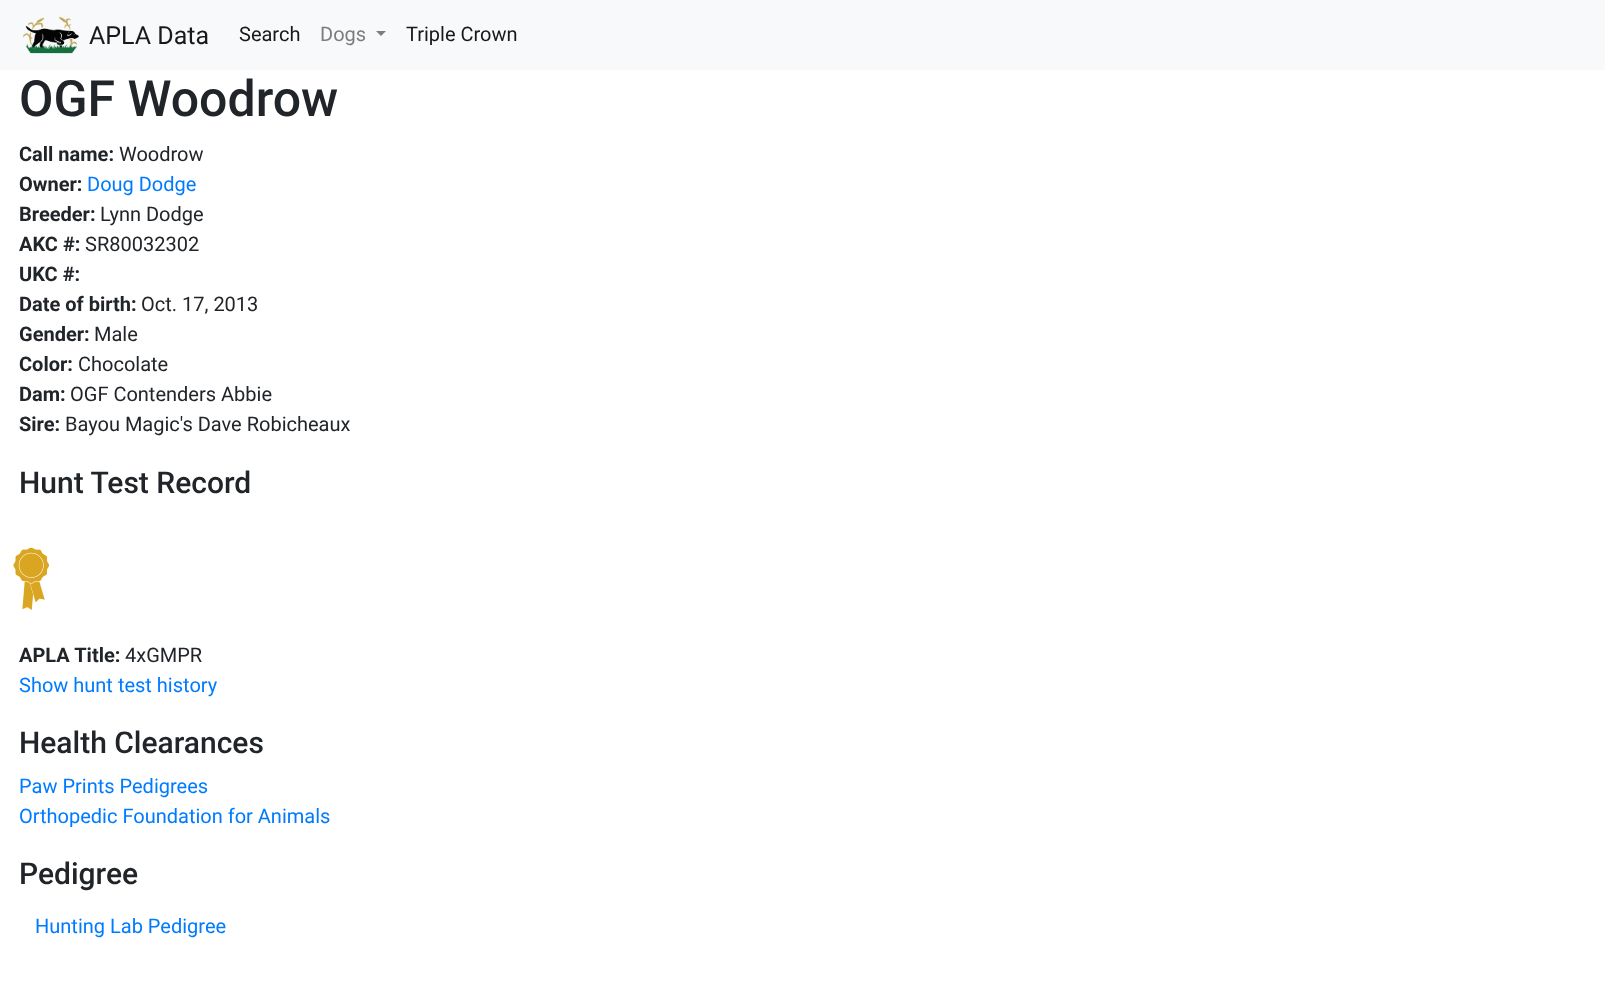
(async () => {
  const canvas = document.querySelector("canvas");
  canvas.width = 1605;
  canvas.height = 1001;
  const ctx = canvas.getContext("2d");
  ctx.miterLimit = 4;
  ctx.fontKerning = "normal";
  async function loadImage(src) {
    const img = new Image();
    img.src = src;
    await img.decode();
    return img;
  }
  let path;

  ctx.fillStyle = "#ffffff";
  ctx.fillRect(0, 0, 1605, 1001);
  ctx.fillStyle = "#f8f9fa";
  ctx.fillRect(0, 0, 1605, 70);
  ctx.drawImage(await loadImage("img/1.png"), 23, 16, 56, 38);
  ctx.fillStyle = "#7c7d7d";
  path = new Path2D("M376 31H386L381 36Z");
  ctx.fill(path);
  ctx.drawImage(await loadImage("img/2.png"), 13, 548, 37, 62);
  ctx.font = "25px Roboto";
  ctx.fillStyle = "#191919";
  ctx.fillText("APLA Data", 89, 44);
  ctx.font = "20px Roboto";
  ctx.fillText("Search", 239, 41);
  ctx.fillStyle = "#7c7d7d";
  ctx.fillText("Dogs", 320, 41);
  ctx.fillStyle = "#191919";
  ctx.fillText("Triple Crown", 406, 41);
  ctx.font = "500 50px Roboto";
  ctx.fillStyle = "#212529";
  ctx.fillText("OGF Woodrow", 19, 116);
  ctx.font = "bold 20px Roboto";
  ctx.fillText("Call name:", 19, 161);
  ctx.font = "20px Roboto";
  ctx.fillText("Woodrow", 119, 161);
  ctx.font = "bold 20px Roboto";
  ctx.fillText("Owner:", 19, 191);
  ctx.font = "20px Roboto";
  ctx.fillStyle = "#007bff";
  ctx.fillText("Doug Dodge", 87, 191);
  ctx.font = "bold 20px Roboto";
  ctx.fillStyle = "#212529";
  ctx.fillText("Breeder:", 19, 221);
  ctx.font = "20px Roboto";
  ctx.fillText("Lynn Dodge", 100, 221);
  ctx.font = "bold 20px Roboto";
  ctx.fillText("AKC #:", 19, 251);
  ctx.font = "20px Roboto";
  ctx.fillText("SR80032302", 85, 251);
  ctx.font = "bold 20px Roboto";
  ctx.fillText("UKC #:", 19, 281);
  ctx.fillText("Date of birth:", 19, 311);
  ctx.font = "20px Roboto";
  ctx.fillText("Oct. 17, 2013", 141, 311);
  ctx.font = "bold 20px Roboto";
  ctx.fillText("Gender:", 19, 341);
  ctx.font = "20px Roboto";
  ctx.fillText("Male", 94, 341);
  ctx.font = "bold 20px Roboto";
  ctx.fillText("Color:", 19, 371);
  ctx.font = "20px Roboto";
  ctx.fillText("Chocolate", 78, 371);
  ctx.font = "bold 20px Roboto";
  ctx.fillText("Dam:", 19, 401);
  ctx.font = "20px Roboto";
  ctx.fillText("OGF Contenders Abbie", 70, 401);
  ctx.font = "bold 20px Roboto";
  ctx.fillText("Sire:", 19, 431);
  ctx.font = "20px Roboto";
  ctx.fillText("Bayou Magic's Dave Robicheaux", 65, 431);
  ctx.font = "500 30px Roboto";
  ctx.fillText("Hunt Test Record", 19, 493);
  ctx.font = "bold 20px Roboto";
  ctx.fillText("APLA Title:", 19, 662);
  ctx.font = "20px Roboto";
  ctx.fillText("4xGMPR", 125, 662);
  ctx.fillStyle = "#007bff";
  ctx.fillText("Show hunt test history", 19, 692);
  ctx.font = "500 30px Roboto";
  ctx.fillStyle = "#212529";
  ctx.fillText("Health Clearances", 19, 753);
  ctx.font = "20px Roboto";
  ctx.fillStyle = "#007bff";
  ctx.fillText("Paw Prints Pedigrees", 19, 793);
  ctx.fillText("Orthopedic Foundation for Animals", 19, 823);
  ctx.font = "500 30px Roboto";
  ctx.fillStyle = "#212529";
  ctx.fillText("Pedigree", 19, 884);
  ctx.font = "20px Roboto";
  ctx.fillStyle = "#007bff";
  ctx.fillText("Hunting Lab Pedigree", 35, 933);
})();
